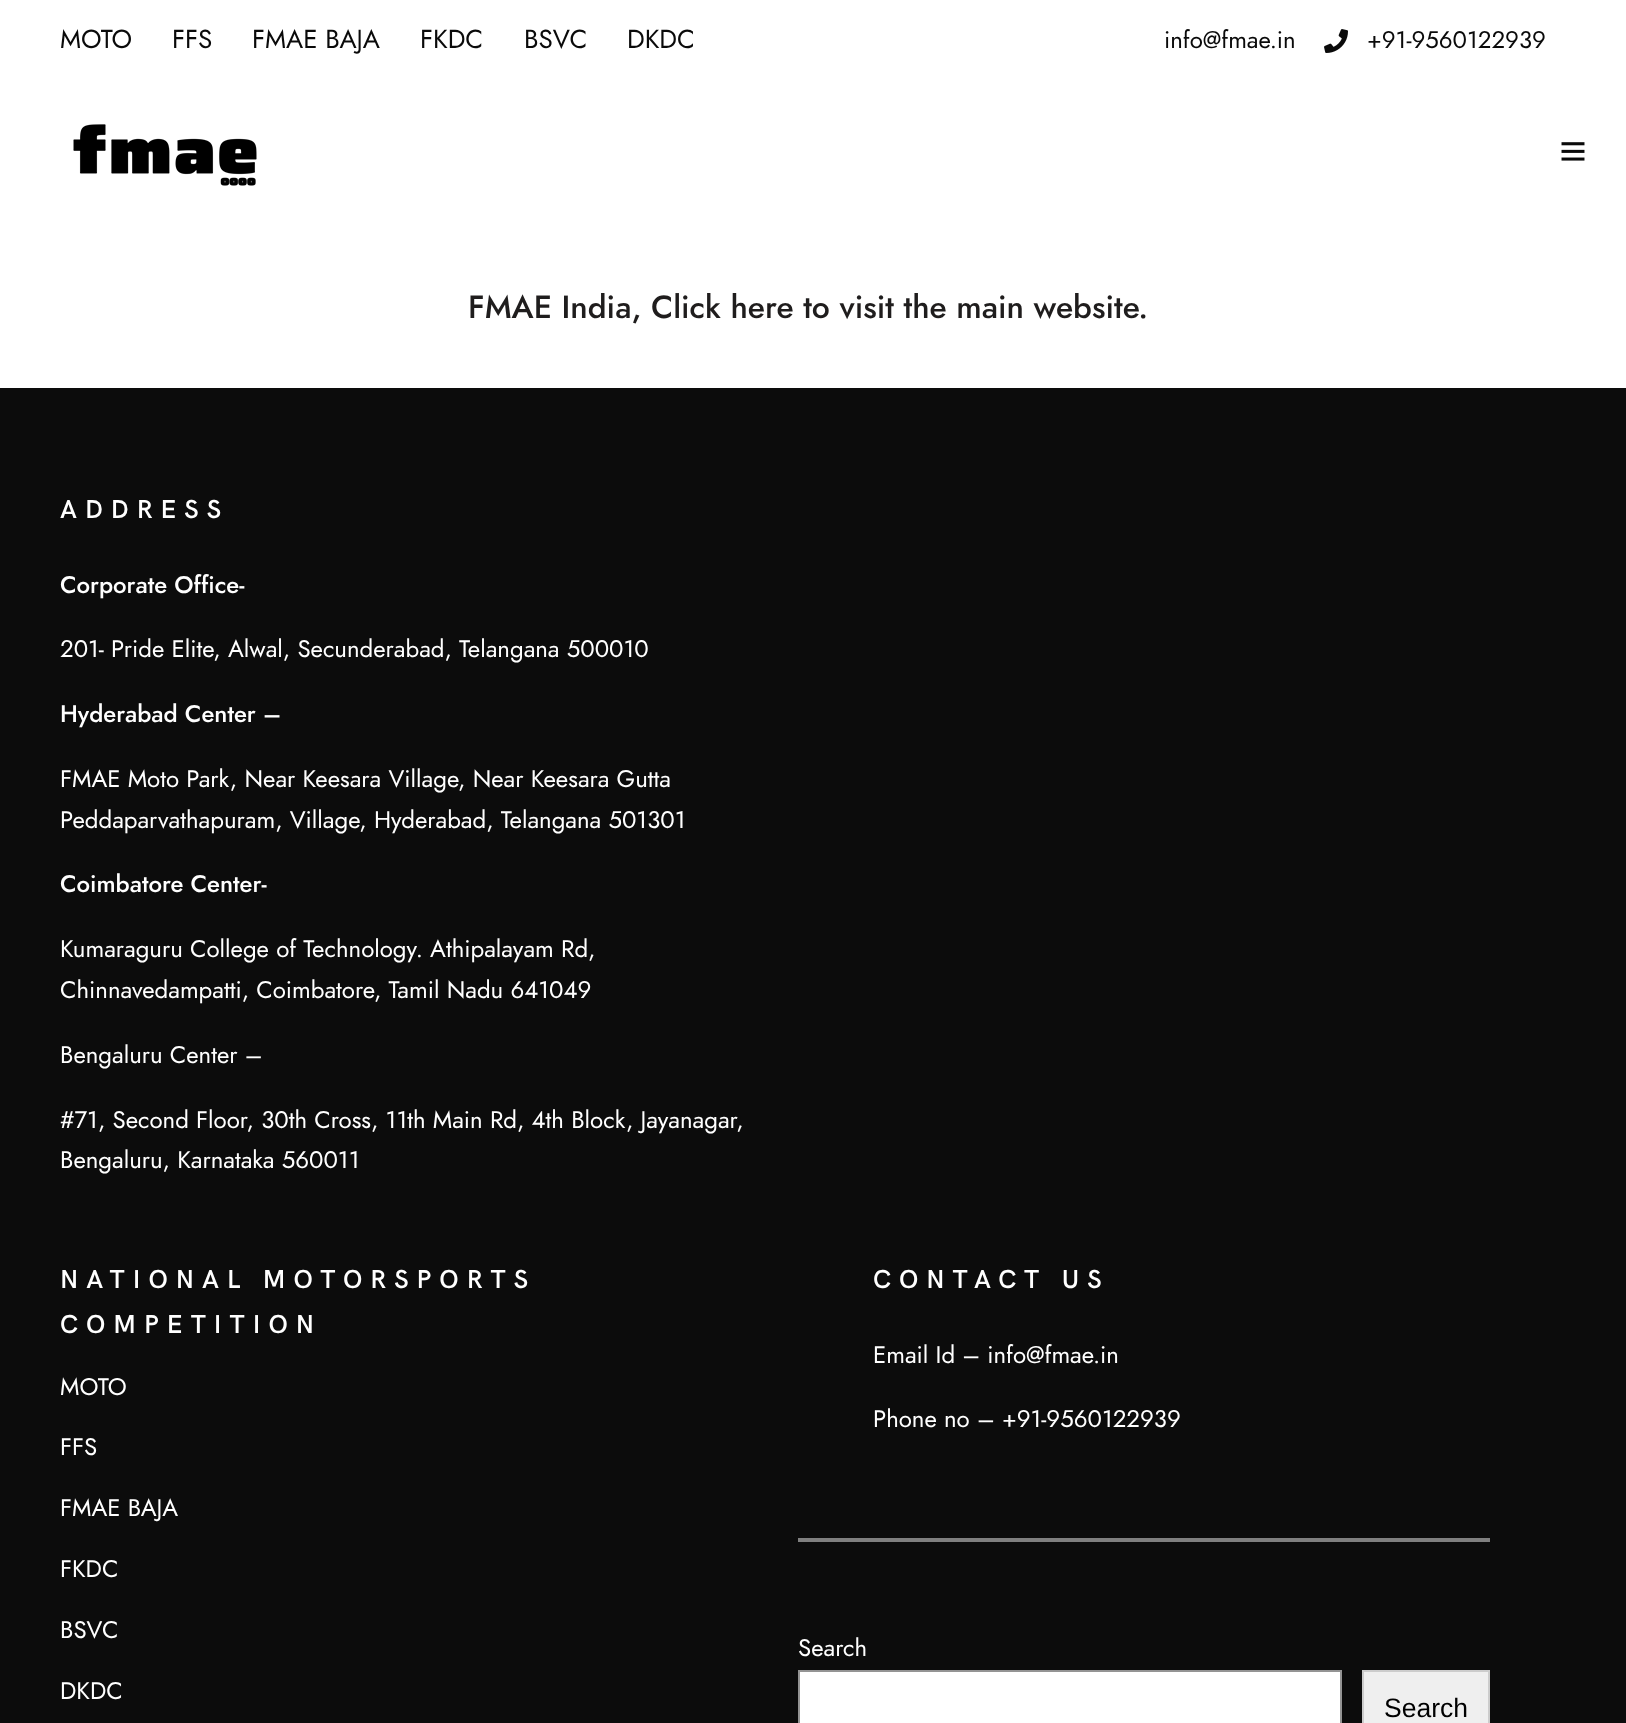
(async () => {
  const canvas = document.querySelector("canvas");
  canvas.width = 1626;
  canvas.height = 1723;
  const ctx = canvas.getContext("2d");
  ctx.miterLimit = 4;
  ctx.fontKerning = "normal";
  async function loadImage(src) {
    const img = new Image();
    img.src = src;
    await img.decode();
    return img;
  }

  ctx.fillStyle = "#ffffff";
  ctx.fillRect(0, 0, 1626, 1723);
  ctx.drawImage(await loadImage("img/1.png"), 1324, 29, 24, 24);
  ctx.drawImage(await loadImage("img/2.png"), 73, 124, 184, 62);
  ctx.drawImage(await loadImage("img/3.png"), 1561, 142, 24, 19);
  ctx.fillStyle = "#0c0c0c";
  ctx.fillRect(0, 388, 1626, 1335);
  ctx.fillStyle = "#808080";
  ctx.fillRect(798, 1538, 692, 4);
  ctx.fillStyle = "#ffffff";
  ctx.beginPath();
  ctx.rect(799, 1671, 542, 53);
  ctx.fill();
  ctx.strokeStyle = "#949494";
  ctx.lineWidth = 2;
  ctx.stroke();
  ctx.fillStyle = "#efefef";
  ctx.beginPath();
  ctx.rect(1363, 1671, 126, 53);
  ctx.fill();
  ctx.strokeStyle = "#cccccc";
  ctx.stroke();
  ctx.font = "26px Jost";
  ctx.fillStyle = "#0a0a0a";
  for (const [text, x, y] of [
    ["MOTO", 60, 48],
    ["FFS", 172, 48],
    ["FMAE BAJA", 252, 48],
    ["FKDC", 420, 48],
    ["BSVC", 524, 48],
    ["DKDC", 627, 48],
  ]) {
    ctx.fillText(text, x, y);
  }
  ctx.font = "24px Jost";
  ctx.fillText("info@fmae.in", 1164, 48);
  ctx.fillText("+91-9560122939", 1367, 48);
  ctx.font = "500 32px Jost";
  ctx.fillStyle = "#1f1d1d";
  ctx.fillText("FMAE India, Click here to visit the main website.", 468, 318);
  ctx.letterSpacing = "8px";
  ctx.font = "600 26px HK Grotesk";
  ctx.fillStyle = "#ffffff";
  ctx.fillText("ADDRESS", 60, 518);
  ctx.letterSpacing = "0px";
  ctx.font = "500 24px Jost";
  ctx.fillText("Corporate Office-", 60, 593);
  ctx.font = "24px Jost";
  ctx.fillText("201- Pride Elite, Alwal, Secunderabad, Telangana 500010", 60, 657);
  ctx.font = "500 24px Jost";
  ctx.fillText("Hyderabad Center –", 60, 722);
  ctx.font = "24px Jost";
  ctx.fillText("FMAE Moto Park, Near Keesara Village, Near Keesara Gutta", 60, 787);
  ctx.fillText("Peddaparvathapuram, Village, Hyderabad, Telangana 501301", 60, 828);
  ctx.font = "500 24px Jost";
  ctx.fillText("Coimbatore Center-", 60, 892);
  ctx.font = "24px Jost";
  for (const [text, x, y] of [
    ["Kumaraguru College of Technology. Athipalayam Rd,", 60, 957],
    ["Chinnavedampatti, Coimbatore, Tamil Nadu 641049", 60, 998],
    ["Bengaluru Center –", 60, 1063],
    ["#71, Second Floor, 30th Cross, 11th Main Rd, 4th Block, Jayanagar,", 60, 1128],
    ["Bengaluru, Karnataka 560011", 60, 1168],
  ]) {
    ctx.fillText(text, x, y);
  }
  ctx.letterSpacing = "8px";
  ctx.font = "600 26px HK Grotesk";
  ctx.fillText("NATIONAL MOTORSPORTS", 60, 1288);
  ctx.fillText("COMPETITION", 60, 1333);
  ctx.letterSpacing = "0px";
  ctx.font = "24px Jost";
  for (const [text, x, y] of [
    ["MOTO", 60, 1395],
    ["FFS", 60, 1455],
    ["FMAE BAJA", 60, 1516],
    ["FKDC", 60, 1577],
    ["BSVC", 60, 1638],
    ["DKDC", 60, 1699],
  ]) {
    ctx.fillText(text, x, y);
  }
  ctx.letterSpacing = "8px";
  ctx.font = "600 26px HK Grotesk";
  ctx.fillText("CONTACT US", 873, 1288);
  ctx.letterSpacing = "0px";
  ctx.font = "24px Jost";
  for (const [text, x, y] of [
    ["Email Id – info@fmae.in", 873, 1363],
    ["Phone no – +91-9560122939", 873, 1427],
    ["Search", 798, 1656],
  ]) {
    ctx.fillText(text, x, y);
  }
  ctx.font = "26.5px Liberation Sans";
  ctx.fillStyle = "#000000";
  ctx.fillText("Search", 1384, 1717);
})();
